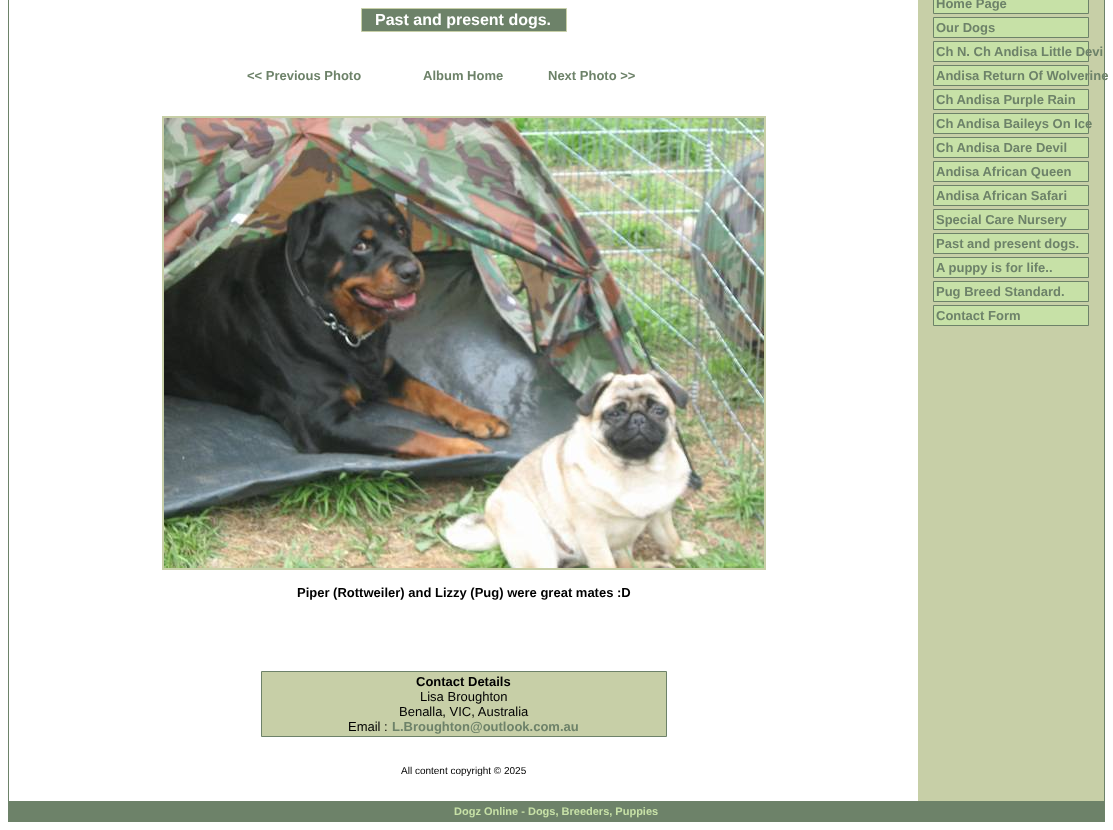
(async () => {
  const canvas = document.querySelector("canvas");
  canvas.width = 1113;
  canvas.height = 830;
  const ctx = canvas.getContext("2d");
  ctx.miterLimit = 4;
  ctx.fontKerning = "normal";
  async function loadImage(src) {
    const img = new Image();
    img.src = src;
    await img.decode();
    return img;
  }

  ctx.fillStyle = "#ffffff";
  ctx.fillRect(0, 0, 1113, 830);
  ctx.strokeStyle = "#6d8269";
  ctx.strokeRect(8.5, -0.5, 1096, 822);
  ctx.fillStyle = "#6d8269";
  ctx.beginPath();
  ctx.rect(361.5, 8.5, 205, 23);
  ctx.fill();
  ctx.strokeStyle = "#c7cfa7";
  ctx.stroke();
  ctx.fillStyle = "#c7cfa7";
  ctx.fillRect(162, 116, 604, 454);
  ctx.drawImage(await loadImage("img/1.png"), 164, 118, 600, 450);
  ctx.beginPath();
  ctx.rect(261.5, 671.5, 405, 65);
  ctx.fill();
  ctx.strokeStyle = "#6d8269";
  ctx.stroke();
  ctx.fillRect(918, 0, 186, 801);
  ctx.fillStyle = "#c7e1a7";
  ctx.beginPath();
  ctx.rect(933.5, -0.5, 155, 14);
  ctx.fill();
  ctx.stroke();
  ctx.beginPath();
  ctx.rect(933.5, 17.5, 155, 20);
  ctx.fill();
  ctx.stroke();
  ctx.beginPath();
  ctx.rect(933.5, 41.5, 155, 20);
  ctx.fill();
  ctx.stroke();
  ctx.beginPath();
  ctx.rect(933.5, 65.5, 155, 20);
  ctx.fill();
  ctx.stroke();
  ctx.beginPath();
  ctx.rect(933.5, 89.5, 155, 20);
  ctx.fill();
  ctx.stroke();
  ctx.beginPath();
  ctx.rect(933.5, 113.5, 155, 20);
  ctx.fill();
  ctx.stroke();
  ctx.beginPath();
  ctx.rect(933.5, 137.5, 155, 20);
  ctx.fill();
  ctx.stroke();
  ctx.beginPath();
  ctx.rect(933.5, 161.5, 155, 20);
  ctx.fill();
  ctx.stroke();
  ctx.beginPath();
  ctx.rect(933.5, 185.5, 155, 20);
  ctx.fill();
  ctx.stroke();
  ctx.beginPath();
  ctx.rect(933.5, 209.5, 155, 20);
  ctx.fill();
  ctx.stroke();
  ctx.beginPath();
  ctx.rect(933.5, 233.5, 155, 20);
  ctx.fill();
  ctx.stroke();
  ctx.beginPath();
  ctx.rect(933.5, 257.5, 155, 20);
  ctx.fill();
  ctx.stroke();
  ctx.beginPath();
  ctx.rect(933.5, 281.5, 155, 20);
  ctx.fill();
  ctx.stroke();
  ctx.beginPath();
  ctx.rect(933.5, 305.5, 155, 20);
  ctx.fill();
  ctx.stroke();
  ctx.fillStyle = "#6d8269";
  ctx.fillRect(9, 801, 1095, 20);
  ctx.font = "bold 16px Liberation Sans";
  ctx.fillStyle = "#ffffff";
  ctx.fillText("Past and present dogs.", 375, 25);
  ctx.font = "bold 13px Liberation Sans";
  ctx.fillStyle = "#6d8269";
  for (const [text, x, y] of [
    ["<< Previous Photo", 247, 80],
    ["Album Home", 423, 80],
    ["Next Photo >>", 548, 80],
  ]) {
    ctx.fillText(text, x, y);
  }
  ctx.fillStyle = "#000000";
  ctx.fillText("Piper (Rottweiler) and Lizzy (Pug) were great mates :D", 297, 597);
  ctx.fillText("Contact Details", 416, 686);
  ctx.font = "13px Liberation Sans";
  for (const [text, x, y] of [
    ["Lisa Broughton", 420, 701],
    ["Benalla, VIC, Australia", 399, 716],
    ["Email :", 348, 731],
  ]) {
    ctx.fillText(text, x, y);
  }
  ctx.font = "bold 13px Liberation Sans";
  ctx.fillStyle = "#6d8269";
  ctx.fillText("L.Broughton@outlook.com.au", 392, 731);
  ctx.font = "10px Liberation Sans";
  ctx.fillStyle = "#000000";
  ctx.fillText("All content copyright © 2025", 401, 774);
  ctx.font = "bold 13px Liberation Sans";
  ctx.fillStyle = "#6d8269";
  for (const [text, x, y] of [
    ["Home Page", 936, 8],
    ["Our Dogs", 936, 32],
    ["Ch N. Ch Andisa Little Devi", 936, 56],
    ["Andisa Return Of Wolverine", 936, 80],
    ["Ch Andisa Purple Rain", 936, 104],
    ["Ch Andisa Baileys On Ice", 936, 128],
    ["Ch Andisa Dare Devil", 936, 152],
    ["Andisa African Queen", 936, 176],
    ["Andisa African Safari", 936, 200],
    ["Special Care Nursery", 936, 224],
    ["Past and present dogs.", 936, 248],
    ["A puppy is for life..", 936, 272],
    ["Pug Breed Standard.", 936, 296],
    ["Contact Form", 936, 320],
  ]) {
    ctx.fillText(text, x, y);
  }
  ctx.font = "bold 11px Liberation Sans";
  ctx.fillStyle = "#c7e1a7";
  ctx.fillText("Dogz Online - Dogs, Breeders, Puppies", 454, 815);
})();
